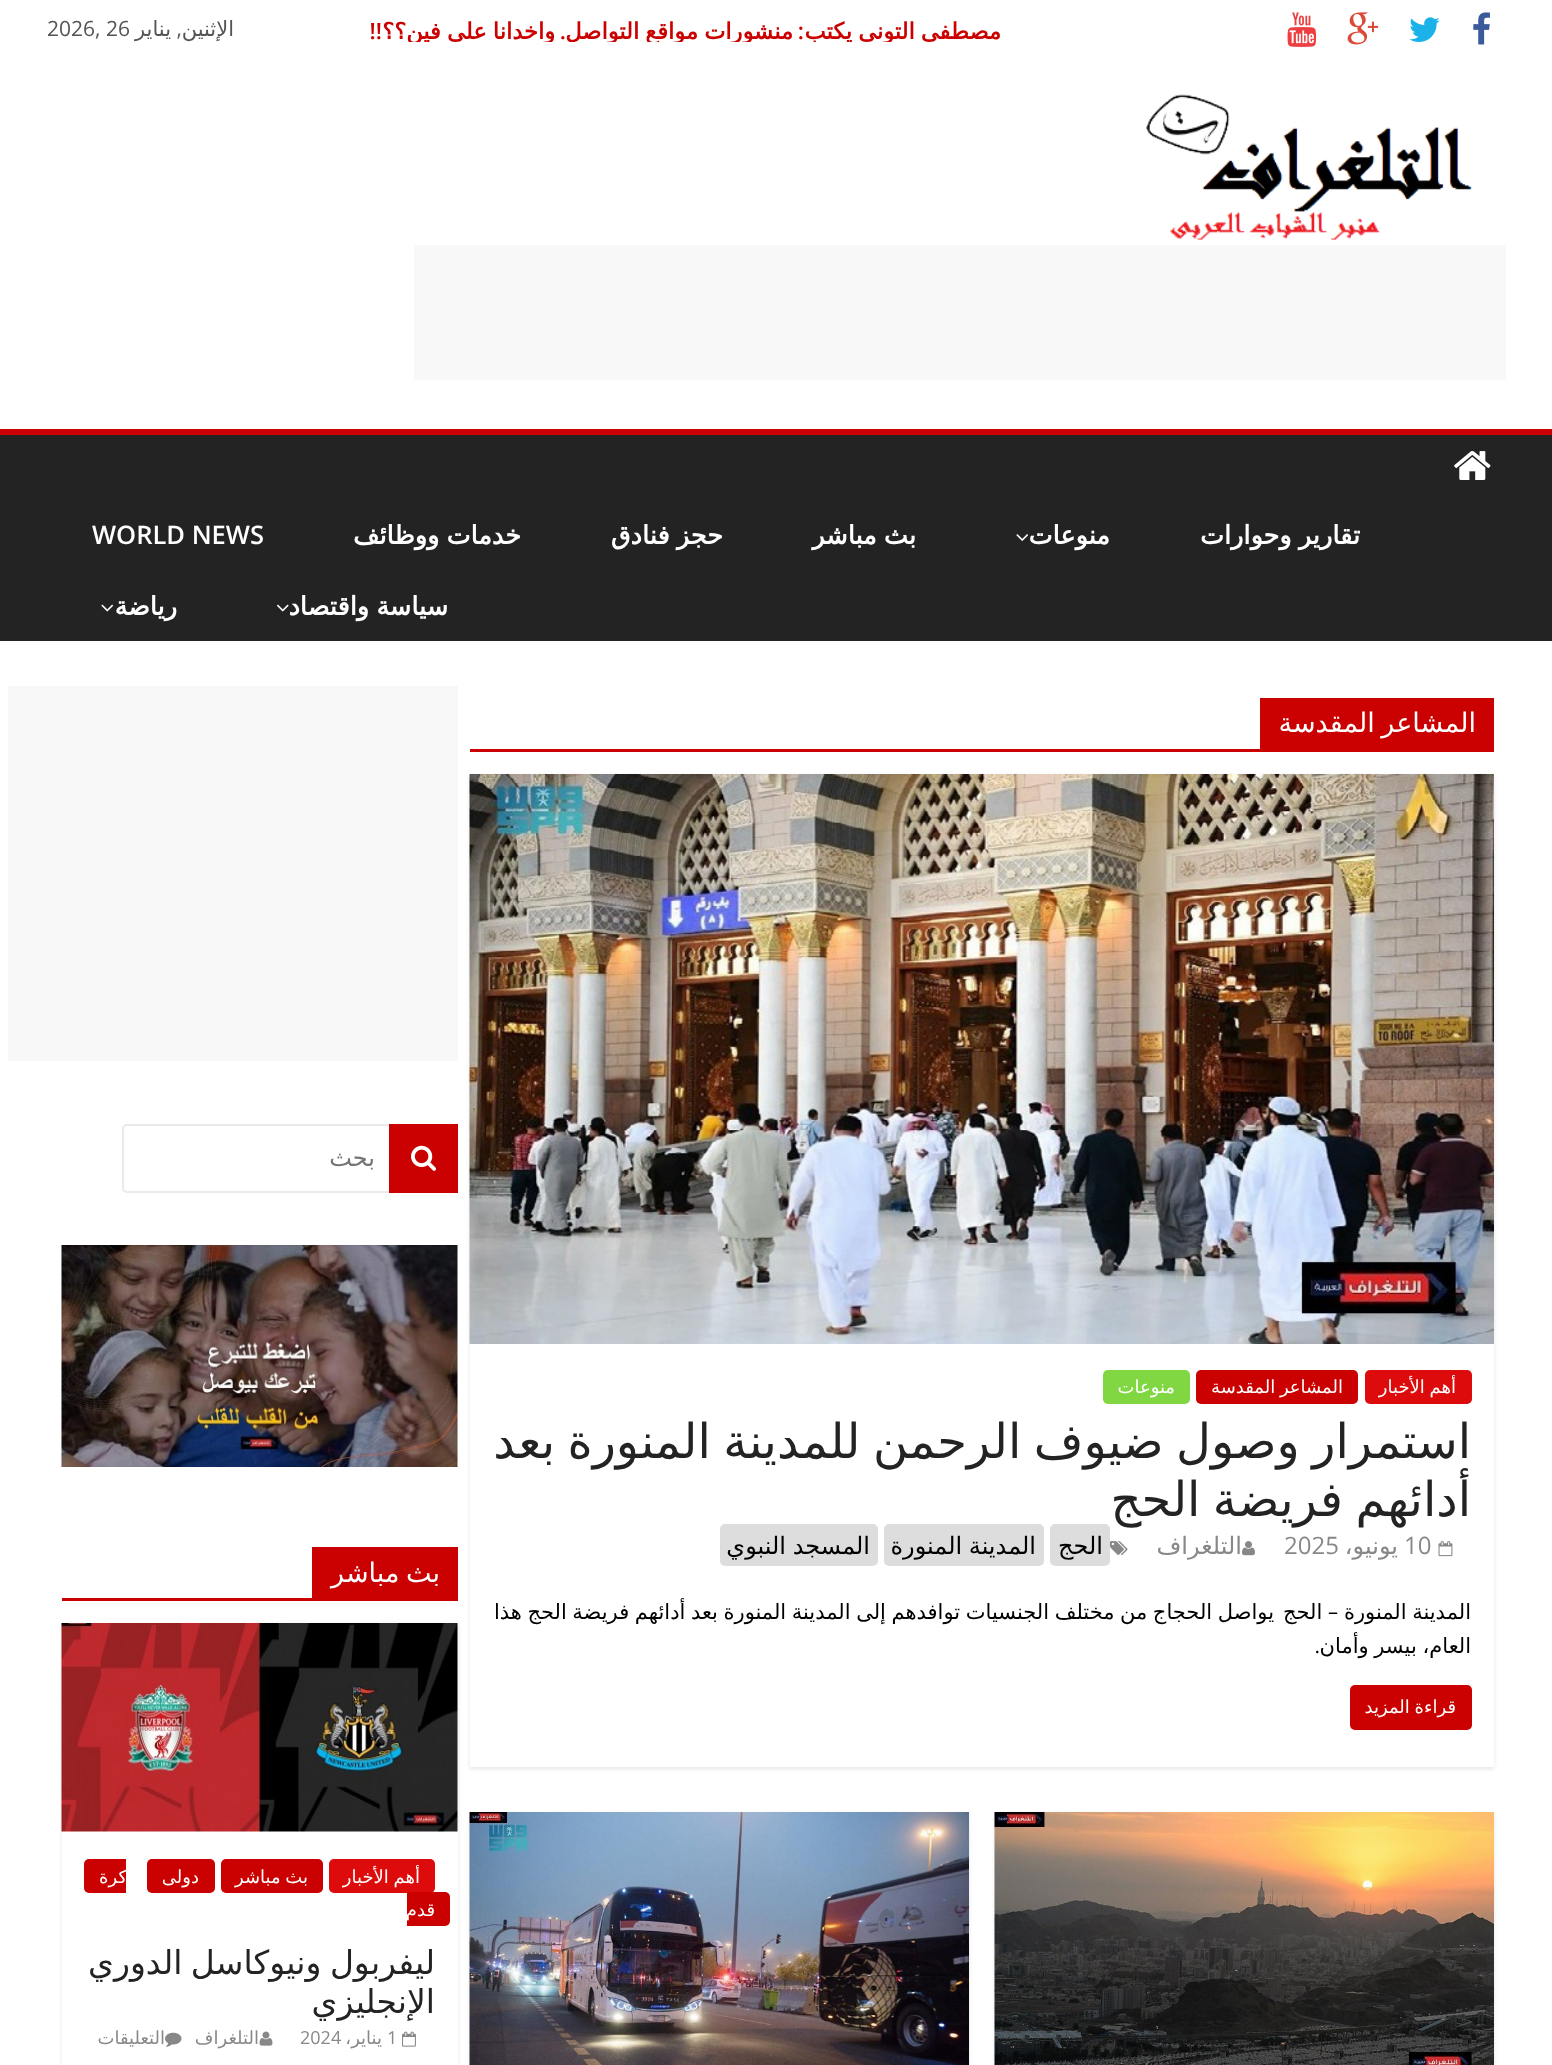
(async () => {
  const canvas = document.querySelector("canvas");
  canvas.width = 1552;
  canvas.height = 2065;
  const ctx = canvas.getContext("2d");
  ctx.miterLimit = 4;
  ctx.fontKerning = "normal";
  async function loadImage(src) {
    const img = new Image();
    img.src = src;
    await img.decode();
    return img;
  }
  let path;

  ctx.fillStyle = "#ffffff";
  ctx.fillRect(0, 0, 1552, 2065);
  ctx.drawImage(await loadImage("img/1.png"), 1473, 12, 17, 33);
  ctx.drawImage(await loadImage("img/2.png"), 1409, 17, 31, 25);
  ctx.drawImage(await loadImage("img/3.png"), 1347, 12, 32, 33);
  ctx.drawImage(await loadImage("img/4.png"), 1287, 12, 30, 35);
  ctx.drawImage(await loadImage("img/5.png"), 1146, 94, 326, 146);
  for (const [x, y, w, h, color] of [
    [414, 245, 1092, 135, "#f8f8f8"],
    [0, 435, 1552, 206, "#232323"],
    [0, 429, 1552, 6, "#cb0000"],
  ]) {
    ctx.fillStyle = color;
    ctx.fillRect(x, y, w, h);
  }
  ctx.drawImage(await loadImage("img/6.png"), 1454, 451, 37, 29);
  ctx.drawImage(await loadImage("img/7.png"), 1016, 534, 12, 7);
  ctx.drawImage(await loadImage("img/8.png"), 276, 604, 13, 8);
  ctx.drawImage(await loadImage("img/9.png"), 101, 604, 13, 8);
  ctx.fillRect(470, 749, 1024, 3);
  ctx.fillRect(1260, 698, 234, 51);
  ctx.save();
  path = new Path2D("M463 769H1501V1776H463ZM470 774H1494V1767H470Z");
  ctx.clip(path, "evenodd");
  ctx.fillStyle = "rgba(0, 0, 0, 0.1)";
  ctx.filter = "blur(2px)";
  ctx.beginPath();
  ctx.rect(470, 776, 1024, 993);
  ctx.fill();
  ctx.filter = "none";
  ctx.restore();
  ctx.drawImage(await loadImage("img/10.png"), 469, 774, 1025, 570);
  ctx.fillStyle = "#dd0b0b";
  ctx.beginPath();
  ctx.roundRect(1365, 1370, 107, 34, 5);
  ctx.fill();
  ctx.fillStyle = "#cb0000";
  ctx.beginPath();
  ctx.roundRect(1196, 1370, 162, 34, 5);
  ctx.fill();
  ctx.fillStyle = "#81d742";
  ctx.beginPath();
  ctx.roundRect(1103, 1370, 87, 34, 5);
  ctx.fill();
  ctx.drawImage(await loadImage("img/11.png"), 1438, 1541, 15, 16);
  ctx.drawImage(await loadImage("img/12.png"), 1242, 1541, 13, 15);
  ctx.drawImage(await loadImage("img/13.png"), 1110, 1541, 18, 14);
  ctx.fillStyle = "#dedddd";
  ctx.beginPath();
  ctx.roundRect(1050, 1524, 60, 42, 5);
  ctx.fill();
  ctx.beginPath();
  ctx.roundRect(884, 1524, 160, 42, 5);
  ctx.fill();
  ctx.beginPath();
  ctx.roundRect(720, 1524, 158, 42, 5);
  ctx.fill();
  ctx.fillStyle = "#cb0000";
  ctx.beginPath();
  ctx.roundRect(1350, 1685, 122, 45, 5);
  ctx.fill();
  ctx.fillStyle = "rgba(0, 0, 0, 0.1)";
  ctx.filter = "blur(2px)";
  ctx.beginPath();
  ctx.rect(995, 1814, 499, 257);
  ctx.fill();
  ctx.filter = "none";
  ctx.drawImage(await loadImage("img/14.png"), 994, 1812, 500, 253);
  ctx.filter = "blur(2px)";
  ctx.beginPath();
  ctx.rect(470, 1814, 499, 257);
  ctx.fill();
  ctx.filter = "none";
  ctx.drawImage(await loadImage("img/15.png"), 469, 1812, 500, 253);
  ctx.fillStyle = "#f8f8f8";
  ctx.fillRect(8, 686, 450, 375);
  ctx.beginPath();
  ctx.roundRect(123, 1125, 334, 67, 4);
  ctx.strokeStyle = "#eaeaea";
  ctx.lineWidth = 2;
  ctx.stroke();
  ctx.fillStyle = "#cb0000";
  ctx.fillRect(389, 1124, 69, 69);
  ctx.drawImage(await loadImage("img/16.png"), 411, 1145, 25, 26);
  ctx.drawImage(await loadImage("img/17.png"), 61, 1245, 397, 222);
  ctx.fillRect(62, 1598, 396, 3);
  ctx.fillRect(312, 1547, 146, 51);
  ctx.fillStyle = "rgba(0, 0, 0, 0.1)";
  ctx.filter = "blur(2px)";
  ctx.beginPath();
  ctx.rect(62, 1625, 396, 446);
  ctx.fill();
  ctx.filter = "none";
  ctx.fillStyle = "#ffffff";
  ctx.fillRect(62, 1623, 396, 442);
  ctx.drawImage(await loadImage("img/18.png"), 61, 1623, 397, 209);
  ctx.fillStyle = "#dd0b0b";
  ctx.beginPath();
  ctx.roundRect(329, 1859, 106, 34, 5);
  ctx.fill();
  ctx.fillStyle = "#cb0000";
  ctx.beginPath();
  ctx.roundRect(221, 1859, 102, 34, 5);
  ctx.fill();
  ctx.beginPath();
  ctx.roundRect(147, 1859, 68, 34, 5);
  ctx.fill();
  ctx.beginPath();
  ctx.roundRect(84, 1859, 42, 34, [5, 0, 0, 5]);
  ctx.fill();
  ctx.beginPath();
  ctx.roundRect(407, 1892, 43, 34, [0, 5, 5, 0]);
  ctx.fill();
  ctx.drawImage(await loadImage("img/19.png"), 402, 2031, 14, 16);
  ctx.drawImage(await loadImage("img/20.png"), 259, 2031, 14, 15);
  ctx.drawImage(await loadImage("img/21.png"), 165, 2032, 17, 15);
  ctx.save();
  ctx.beginPath();
  ctx.rect(326, 12, 675, 30);
  ctx.clip();
  ctx.wordSpacing = "-1px";
  ctx.direction = "rtl";
  ctx.font = "bold 22.5px DejaVu Sans";
  ctx.fillText("مصطفى التوني يكتب", 1001, 39);
  ctx.restore();
  ctx.direction = "rtl";
  ctx.font = "600 22.5px Open Sans";
  ctx.fillText(":", 804, 39);
  ctx.save();
  ctx.beginPath();
  ctx.rect(326, 12, 675, 30);
  ctx.clip();
  ctx.wordSpacing = "-1px";
  ctx.font = "bold 22.5px DejaVu Sans";
  ctx.fillText("منشورات مواقع التواصل", 793, 39);
  ctx.restore();
  ctx.fillText(".", 566, 39);
  ctx.save();
  ctx.beginPath();
  ctx.rect(326, 12, 675, 30);
  ctx.clip();
  ctx.wordSpacing = "-1px";
  ctx.font = "bold 22.5px DejaVu Sans";
  ctx.fillText("واخدانا على فين؟؟", 555, 39);
  ctx.restore();
  ctx.fillText("!!", 382, 39);
  ctx.font = "21px DejaVu Sans";
  ctx.fillStyle = "#555555";
  ctx.fillText("الإثنين", 234, 36);
  ctx.font = "21px Open Sans";
  ctx.fillText(",", 182, 36);
  ctx.font = "21px DejaVu Sans";
  ctx.fillText("يناير", 171, 36);
  ctx.direction = "ltr";
  ctx.font = "21px Open Sans";
  ctx.fillText("2026, 26", 47, 36);
  ctx.wordSpacing = "-1px";
  ctx.direction = "rtl";
  ctx.font = "bold 25.5px DejaVu Sans";
  ctx.fillStyle = "#ffffff";
  ctx.fillText("تقارير وحوارات", 1360, 544);
  ctx.wordSpacing = "0px";
  ctx.fillText("منوعات", 1110, 544);
  ctx.wordSpacing = "-1px";
  for (const [text, x, y] of [
    ["بث مباشر", 916, 544],
    ["حجز فنادق", 723, 544],
    ["خدمات ووظائف", 521, 544],
  ]) {
    ctx.fillText(text, x, y);
  }
  ctx.wordSpacing = "0px";
  ctx.direction = "ltr";
  ctx.font = "600 25.5px Open Sans";
  ctx.fillText("WORLD NEWS", 92, 544);
  ctx.wordSpacing = "-1px";
  ctx.direction = "rtl";
  ctx.font = "bold 25.5px DejaVu Sans";
  ctx.fillText("سياسة واقتصاد", 448, 615);
  ctx.wordSpacing = "0px";
  ctx.fillText("رياضة", 177, 615);
  ctx.wordSpacing = "-2px";
  ctx.font = "27px DejaVu Sans";
  ctx.fillText("المشاعر المقدسة", 1476, 732);
  ctx.wordSpacing = "-1px";
  ctx.font = "18px DejaVu Sans";
  ctx.fillText("أهم الأخبار", 1456, 1393);
  ctx.fillText("المشاعر المقدسة", 1343, 1393);
  ctx.wordSpacing = "0px";
  ctx.fillText("منوعات", 1175, 1393);
  ctx.wordSpacing = "-2.75px";
  ctx.font = "48px DejaVu Sans";
  ctx.fillStyle = "#232323";
  ctx.fillText("استمرار وصول ضيوف الرحمن للمدينة المنورة بعد", 1471, 1458);
  ctx.fillText("أدائهم فريضة الحج", 1471, 1516);
  ctx.wordSpacing = "0px";
  ctx.direction = "ltr";
  ctx.font = "24px Open Sans";
  ctx.fillStyle = "#888888";
  ctx.fillText("10", 1404, 1554);
  ctx.direction = "rtl";
  ctx.font = "24px DejaVu Sans";
  ctx.fillText("يونيو،", 1398, 1554);
  ctx.direction = "ltr";
  ctx.font = "24px Open Sans";
  ctx.fillText("2025", 1284, 1554);
  ctx.direction = "rtl";
  ctx.font = "24px DejaVu Sans";
  ctx.fillText("التلغراف", 1242, 1554);
  ctx.fillStyle = "#000000";
  ctx.fillText("الحج", 1103, 1554);
  ctx.wordSpacing = "-1px";
  ctx.fillText("المدينة المنورة", 1036, 1554);
  ctx.fillText("المسجد النبوي", 870, 1554);
  ctx.wordSpacing = "-1.1px";
  ctx.font = "21px DejaVu Sans";
  ctx.fillText("المدينة المنورة – الحج", 1471, 1619);
  ctx.fillText("يواصل الحجاج من مختلف الجنسيات توافدهم إلى المدينة المنورة بعد أدائهم فريضة الحج هذا", 1274, 1619);
  ctx.wordSpacing = "-1px";
  ctx.fillText("العام، بيسر وأمان", 1471, 1653);
  ctx.wordSpacing = "0px";
  ctx.font = "21px Open Sans";
  ctx.fillText(".", 1320, 1653);
  ctx.wordSpacing = "-1px";
  ctx.font = "18px DejaVu Sans";
  ctx.fillStyle = "#ffffff";
  ctx.fillText("قراءة المزيد", 1456, 1713);
  ctx.wordSpacing = "0px";
  ctx.font = "24px DejaVu Sans";
  ctx.fillStyle = "#757575";
  ctx.fillText("بحث", 375, 1166);
  ctx.wordSpacing = "-2px";
  ctx.font = "27px DejaVu Sans";
  ctx.fillStyle = "#ffffff";
  ctx.fillText("بث مباشر", 440, 1582);
  ctx.wordSpacing = "-1px";
  ctx.font = "18px DejaVu Sans";
  ctx.fillText("أهم الأخبار", 420, 1883);
  ctx.fillText("بث مباشر", 308, 1883);
  ctx.wordSpacing = "0px";
  for (const [text, x, y] of [
    ["دولى", 199, 1883],
    ["كرة", 127, 1883],
    ["قدم", 435, 1916],
  ]) {
    ctx.fillText(text, x, y);
  }
  ctx.wordSpacing = "-2px";
  ctx.font = "33px DejaVu Sans";
  ctx.fillStyle = "#232323";
  ctx.fillText("ليفربول ونيوكاسل الدوري", 435, 1974);
  ctx.wordSpacing = "0px";
  ctx.fillText("الإنجليزي", 435, 2013);
  ctx.direction = "ltr";
  ctx.font = "18px Open Sans";
  ctx.fillStyle = "#888888";
  ctx.fillText("1", 387, 2044);
  ctx.direction = "rtl";
  ctx.font = "18px DejaVu Sans";
  ctx.fillText("يناير،", 382, 2044);
  ctx.direction = "ltr";
  ctx.font = "18px Open Sans";
  ctx.fillText("2024", 300, 2044);
  ctx.direction = "rtl";
  ctx.font = "18px DejaVu Sans";
  ctx.fillText("التلغراف", 259, 2044);
  ctx.fillText("التعليقات", 165, 2044);
})();
